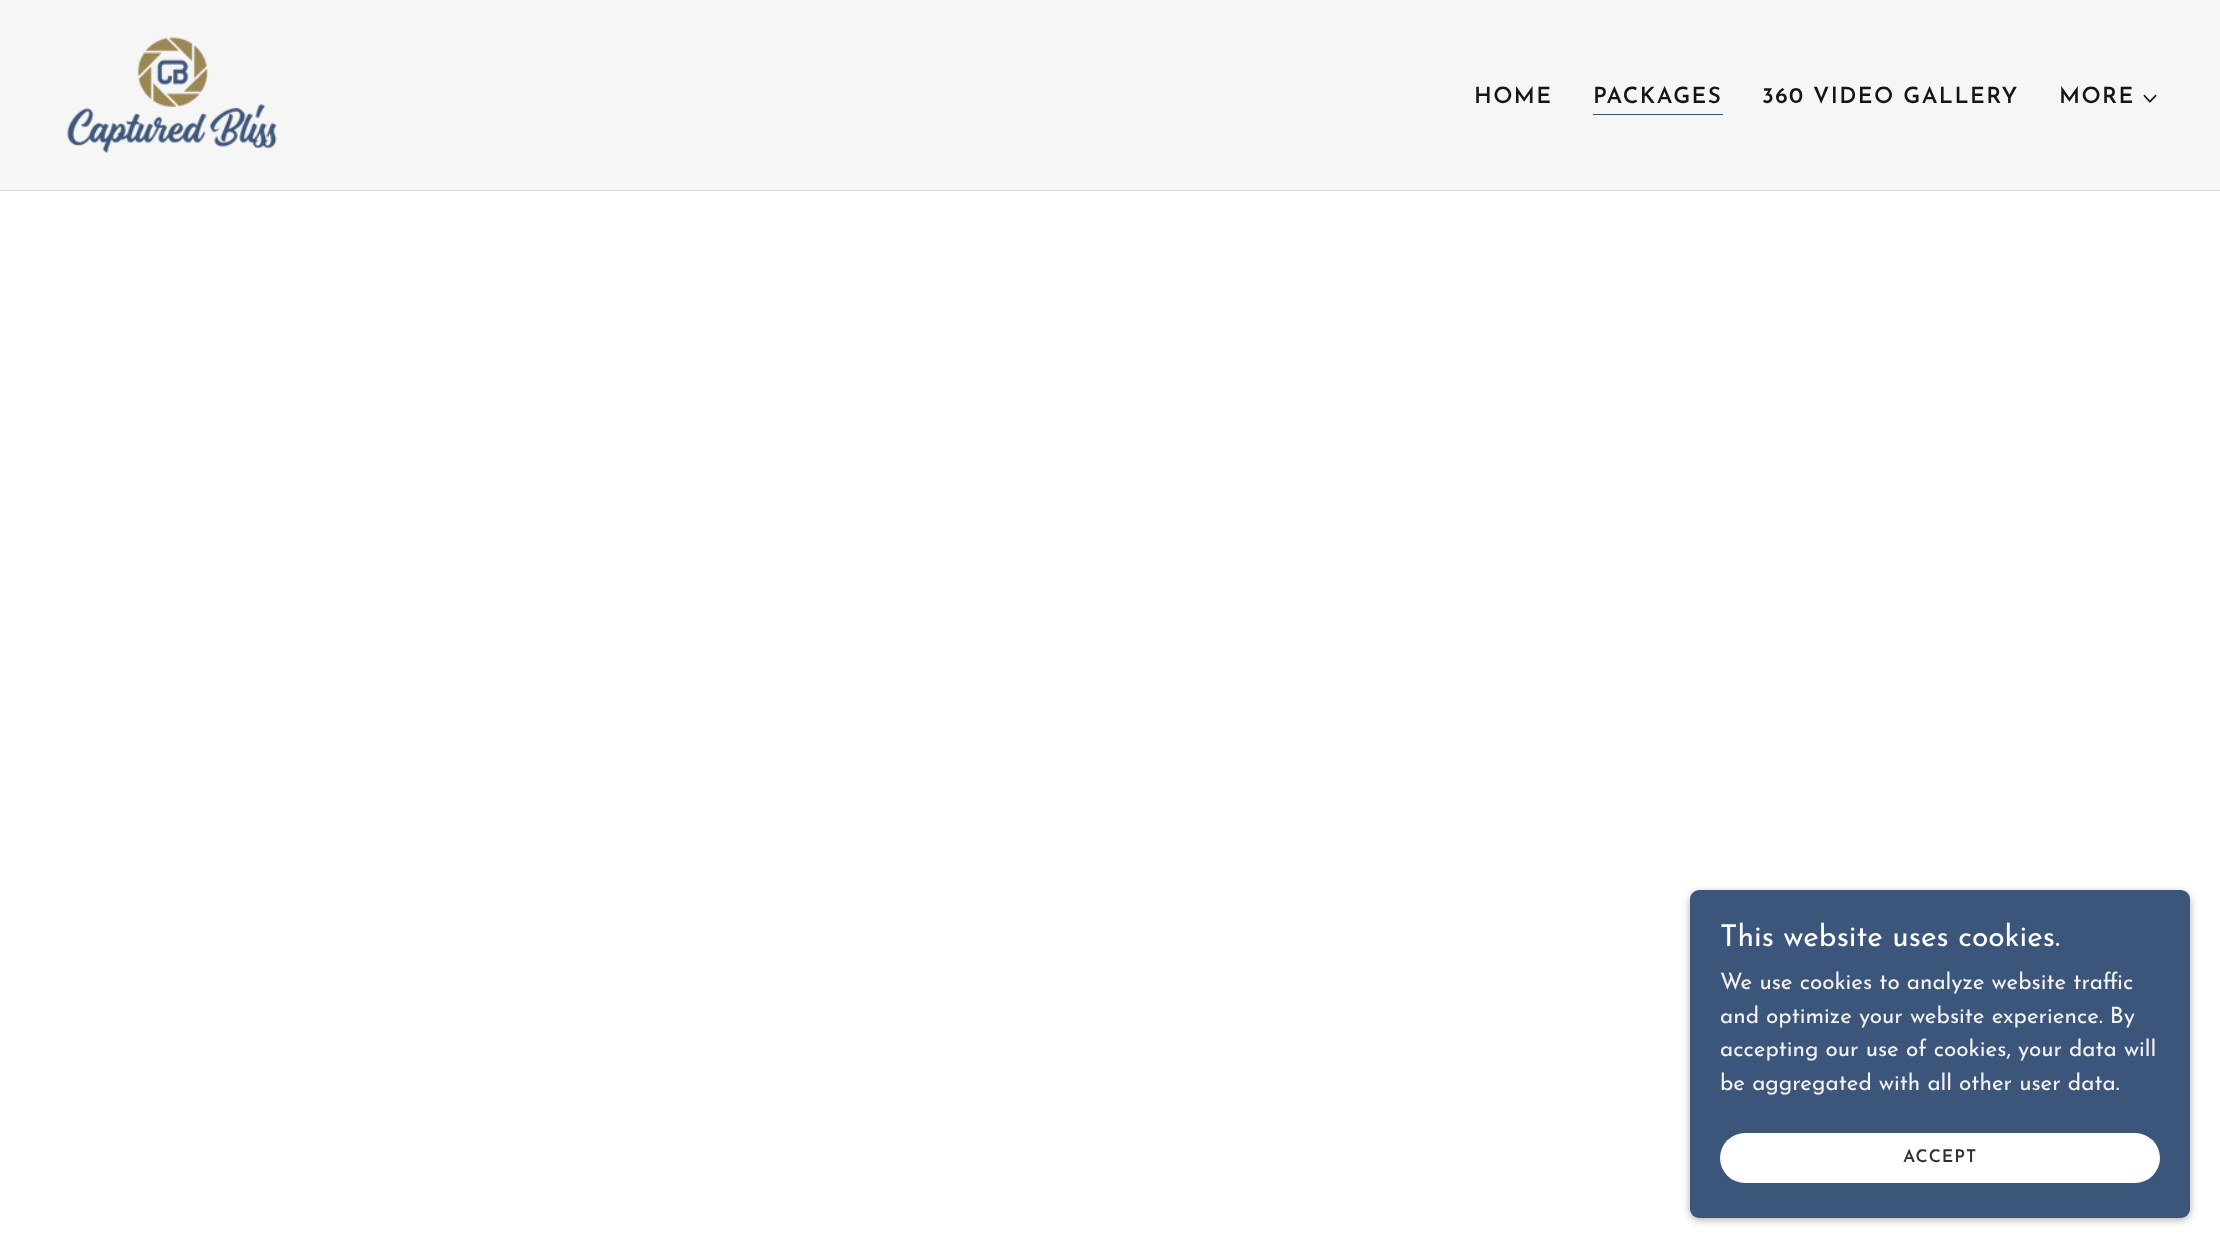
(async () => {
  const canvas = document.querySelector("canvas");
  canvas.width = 2220;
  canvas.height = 1247;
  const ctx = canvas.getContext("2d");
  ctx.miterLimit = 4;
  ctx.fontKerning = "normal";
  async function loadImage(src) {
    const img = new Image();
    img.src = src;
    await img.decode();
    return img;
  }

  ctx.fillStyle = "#ffffff";
  ctx.fillRect(0, 0, 2220, 1247);
  ctx.fillStyle = "#f6f6f6";
  ctx.fillRect(0, 0, 2220, 190);
  ctx.drawImage(await loadImage("img/1.png"), 67, 37, 210, 116);
  ctx.fillStyle = "#3c557b";
  ctx.fillRect(1593, 114, 130, 1);
  ctx.drawImage(await loadImage("img/2.png"), 2143, 94, 14, 9);
  ctx.fillStyle = "#dadada";
  ctx.fillRect(0, 190, 2220, 1);
  ctx.fillStyle = "rgba(0, 0, 0, 0.3)";
  ctx.filter = "blur(4px)";
  ctx.beginPath();
  ctx.roundRect(1690, 893, 500, 327, 9);
  ctx.fill();
  ctx.filter = "none";
  ctx.fillStyle = "#3c557b";
  ctx.beginPath();
  ctx.roundRect(1690, 890, 500, 328, 9);
  ctx.fill();
  ctx.fillStyle = "#ffffff";
  ctx.beginPath();
  ctx.roundRect(1720, 1133, 440, 50, 25);
  ctx.fill();
  ctx.letterSpacing = "1.4px";
  ctx.font = "600 22.5px Josefin Sans";
  ctx.fillStyle = "#151515";
  for (const [text, x, y] of [
    ["HOME", 1474, 103],
    ["PACKAGES", 1593, 103],
    ["360 VIDEO GALLERY", 1762, 103],
    ["MORE", 2059, 103],
  ]) {
    ctx.fillText(text, x, y);
  }
  ctx.letterSpacing = "0px";
  ctx.font = "30px Josefin Sans";
  ctx.fillStyle = "#ffffff";
  ctx.fillText("This website uses cookies.", 1720, 946);
  ctx.font = "22.5px Josefin Sans";
  ctx.fillStyle = "#f3f3f3";
  for (const [text, x, y] of [
    ["We use cookies to analyze website traffic", 1720, 989],
    ["and optimize your website experience. By", 1720, 1023],
    ["accepting our use of cookies, your data will", 1720, 1056],
    ["be aggregated with all other user data.", 1720, 1090],
  ]) {
    ctx.fillText(text, x, y);
  }
  ctx.letterSpacing = "1px";
  ctx.font = "600 17.5px Josefin Sans";
  ctx.fillStyle = "#303030";
  ctx.fillText("ACCEPT", 1903, 1162);
})();
